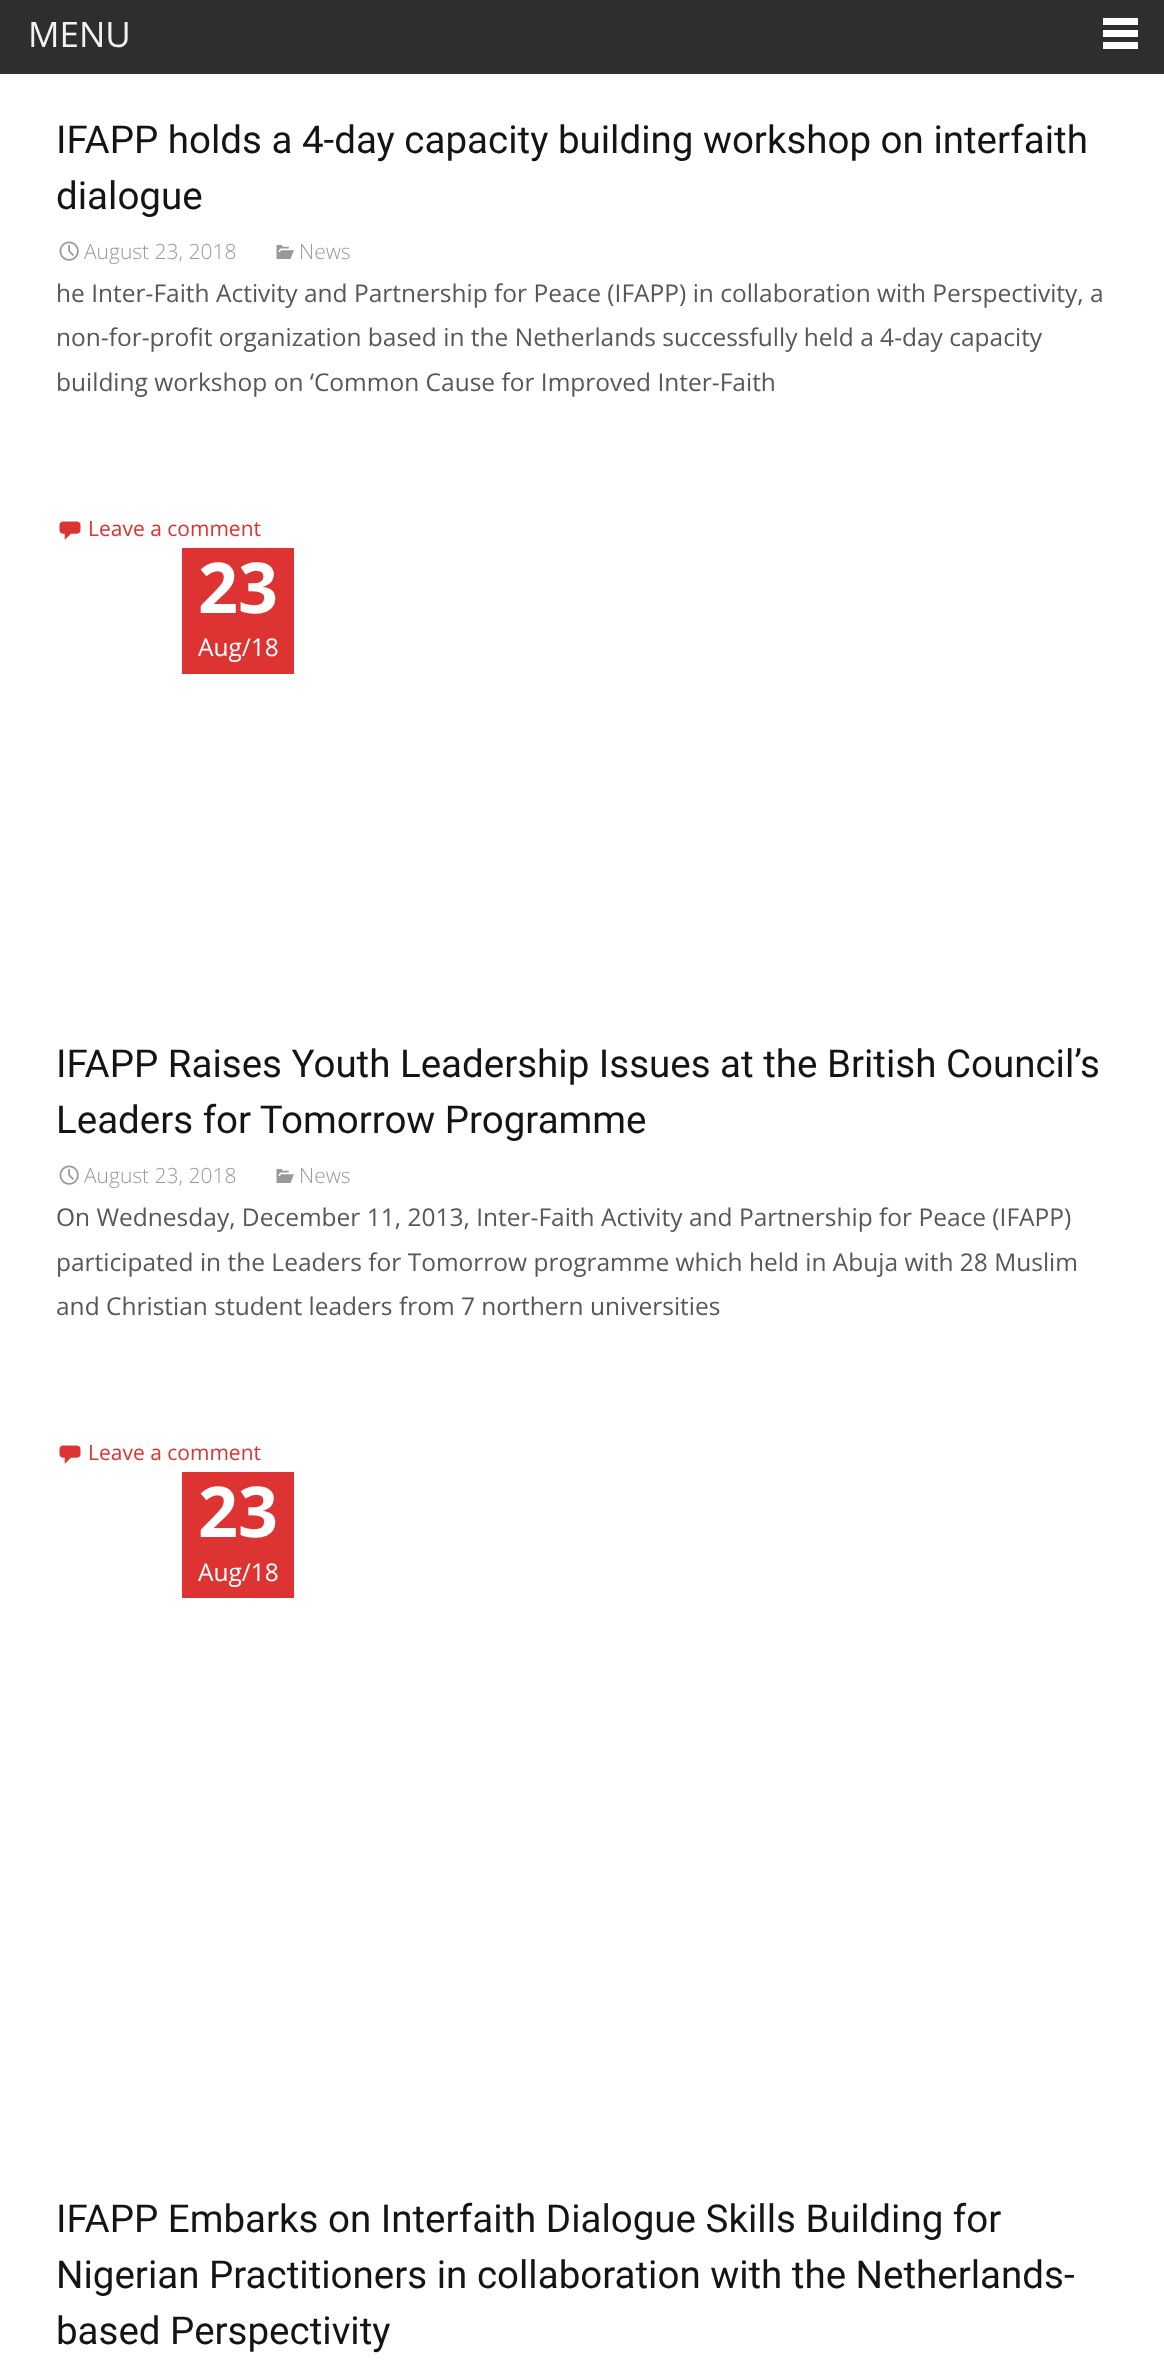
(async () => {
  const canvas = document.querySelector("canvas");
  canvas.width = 1164;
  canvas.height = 2376;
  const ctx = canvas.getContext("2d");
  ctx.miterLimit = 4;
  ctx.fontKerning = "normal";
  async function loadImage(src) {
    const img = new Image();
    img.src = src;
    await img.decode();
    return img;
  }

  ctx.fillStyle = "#ffffff";
  ctx.fillRect(0, 0, 1164, 2376);
  for (const [x, y, w, h, color] of [
    [0, 0, 1164, 74, "#2e2e2e"],
    [1103, 18, 35, 7, "#ffffff"],
    [1103, 30, 35, 7, "#ffffff"],
    [1103, 42, 35, 7, "#ffffff"],
  ]) {
    ctx.fillStyle = color;
    ctx.fillRect(x, y, w, h);
  }
  ctx.drawImage(await loadImage("img/1.png"), 59, 241, 20, 20);
  ctx.drawImage(await loadImage("img/2.png"), 276, 245, 18, 14);
  ctx.drawImage(await loadImage("img/3.png"), 59, 521, 22, 19);
  ctx.fillStyle = "#dd3333";
  ctx.fillRect(182, 548, 112, 126);
  ctx.drawImage(await loadImage("img/1.png"), 59, 1165, 20, 20);
  ctx.drawImage(await loadImage("img/2.png"), 276, 1169, 18, 14);
  ctx.drawImage(await loadImage("img/3.png"), 59, 1445, 22, 19);
  ctx.fillRect(182, 1472, 112, 126);
  ctx.font = "35px Open Sans";
  ctx.fillStyle = "#f2f2f2";
  ctx.fillText("MENU", 28, 47);
  ctx.font = "38.5px Roboto";
  ctx.fillStyle = "#141412";
  ctx.fillText("IFAPP holds a 4-day capacity building workshop on interfaith", 56, 153);
  ctx.fillText("dialogue", 56, 209);
  ctx.font = "300 21px Open Sans";
  ctx.fillStyle = "#999999";
  ctx.fillText("August 23, 2018", 84, 259);
  ctx.fillText("News", 299, 259);
  ctx.font = "24.5px Open Sans";
  ctx.fillStyle = "#575757";
  for (const [text, x, y] of [
    ["he Inter-Faith Activity and Partnership for Peace (IFAPP) in collaboration with Perspectivity, a", 56, 302],
    ["non-for-profit organization based in the Netherlands successfully held a 4-day capacity", 56, 346],
    ["building workshop on ‘Common Cause for Improved Inter-Faith", 56, 391],
  ]) {
    ctx.fillText(text, x, y);
  }
  ctx.font = "21px Open Sans";
  ctx.fillStyle = "#dd3333";
  ctx.fillText("Leave a comment", 88, 536);
  ctx.font = "bold 70px Open Sans";
  ctx.fillStyle = "#ffffff";
  ctx.fillText("23", 198, 613);
  ctx.font = "24.5px Open Sans";
  ctx.fillText("Aug/18", 198, 656);
  ctx.font = "38.5px Roboto";
  ctx.fillStyle = "#141412";
  ctx.fillText("IFAPP Raises Youth Leadership Issues at the British Council’s", 56, 1077);
  ctx.fillText("Leaders for Tomorrow Programme", 56, 1133);
  ctx.font = "300 21px Open Sans";
  ctx.fillStyle = "#999999";
  ctx.fillText("August 23, 2018", 84, 1183);
  ctx.fillText("News", 299, 1183);
  ctx.font = "24.5px Open Sans";
  ctx.fillStyle = "#575757";
  for (const [text, x, y] of [
    ["On Wednesday, December 11, 2013, Inter-Faith Activity and Partnership for Peace (IFAPP)", 56, 1226],
    ["participated in the Leaders for Tomorrow programme which held in Abuja with 28 Muslim", 56, 1271],
    ["and Christian student leaders from 7 northern universities", 56, 1315],
  ]) {
    ctx.fillText(text, x, y);
  }
  ctx.font = "21px Open Sans";
  ctx.fillStyle = "#dd3333";
  ctx.fillText("Leave a comment", 88, 1460);
  ctx.font = "bold 70px Open Sans";
  ctx.fillStyle = "#ffffff";
  ctx.fillText("23", 198, 1537);
  ctx.font = "24.5px Open Sans";
  ctx.fillText("Aug/18", 198, 1581);
  ctx.font = "38.5px Roboto";
  ctx.fillStyle = "#141412";
  for (const [text, x, y] of [
    ["IFAPP Embarks on Interfaith Dialogue Skills Building for", 56, 2232],
    ["Nigerian Practitioners in collaboration with the Netherlands-", 56, 2288],
    ["based Perspectivity", 56, 2344],
  ]) {
    ctx.fillText(text, x, y);
  }
})();
